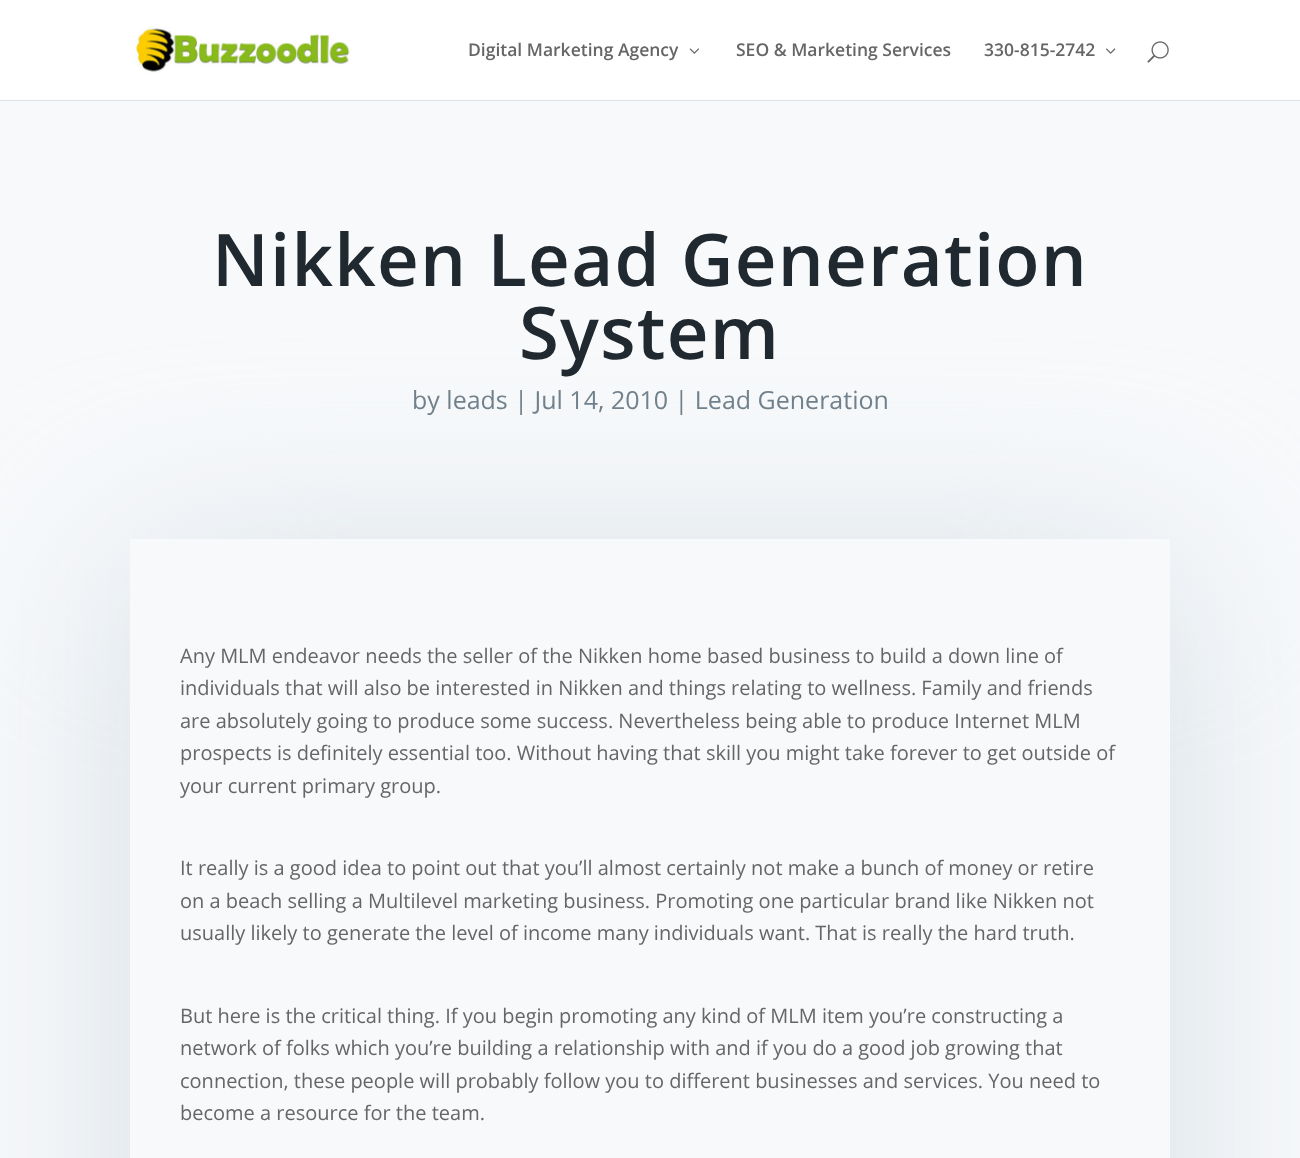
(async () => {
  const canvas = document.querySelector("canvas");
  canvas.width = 1300;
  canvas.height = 1158;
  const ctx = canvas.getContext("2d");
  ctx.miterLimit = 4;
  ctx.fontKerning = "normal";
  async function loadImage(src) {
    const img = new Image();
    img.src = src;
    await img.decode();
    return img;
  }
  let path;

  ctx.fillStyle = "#ffffff";
  ctx.fillRect(0, 0, 1300, 1158);
  ctx.fillStyle = "#dee0e2";
  ctx.fillRect(0, 100, 1300, 1);
  ctx.drawImage(await loadImage("img/1.png"), 135, 26, 216, 47);
  ctx.drawImage(await loadImage("img/2.png"), 689, 48, 10, 6);
  ctx.drawImage(await loadImage("img/3.png"), 1106, 48, 10, 6);
  ctx.drawImage(await loadImage("img/4.png"), 1147, 41, 22, 22);
  ctx.fillStyle = "#f7f9fb";
  ctx.fillRect(0, 101, 1300, 1057);
  ctx.save();
  path = new Path2D("M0 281H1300V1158H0ZM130 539H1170V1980H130Z");
  ctx.clip(path, "evenodd");
  ctx.fillStyle = "#d6dee4";
  ctx.filter = "blur(94px)";
  ctx.beginPath();
  ctx.rect(130, 564, 1040, 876);
  ctx.fill();
  ctx.filter = "none";
  ctx.restore();
  ctx.font = "600 17.5px Open Sans";
  ctx.fillStyle = "#666666";
  for (const [text, x, y] of [
    ["Digital Marketing Agency", 468, 56],
    ["SEO & Marketing Services", 736, 56],
    ["330-815-2742", 984, 56],
  ]) {
    ctx.fillText(text, x, y);
  }
  ctx.letterSpacing = "1.25px";
  ctx.font = "600 72.5px Open Sans";
  ctx.fillStyle = "#20292f";
  ctx.fillText("Nikken Lead Generation", 212, 286);
  ctx.fillText("System", 519, 359);
  ctx.letterSpacing = "0px";
  ctx.font = "25px Open Sans";
  ctx.fillStyle = "#71818c";
  ctx.fillText("by leads | Jul 14, 2010 | Lead Generation", 412, 409);
  ctx.font = "20px Open Sans";
  ctx.fillStyle = "#666666";
  for (const [text, x, y] of [
    ["Any MLM endeavor needs the seller of the Nikken home based business to build a down line of", 180, 663],
    ["individuals that will also be interested in Nikken and things relating to wellness. Family and friends", 180, 695],
    ["are absolutely going to produce some success. Nevertheless being able to produce Internet MLM", 180, 728],
    ["prospects is definitely essential too. Without having that skill you might take forever to get outside of", 180, 760],
    ["your current primary group.", 180, 793],
    ["It really is a good idea to point out that you’ll almost certainly not make a bunch of money or retire", 180, 875],
    ["on a beach selling a Multilevel marketing business. Promoting one particular brand like Nikken not", 180, 908],
    ["usually likely to generate the level of income many individuals want. That is really the hard truth.", 180, 940],
    ["But here is the critical thing. If you begin promoting any kind of MLM item you’re constructing a", 180, 1023],
    ["network of folks which you’re building a relationship with and if you do a good job growing that", 180, 1055],
    ["connection, these people will probably follow you to different businesses and services. You need to", 180, 1088],
    ["become a resource for the team.", 180, 1120],
  ]) {
    ctx.fillText(text, x, y);
  }
})();
